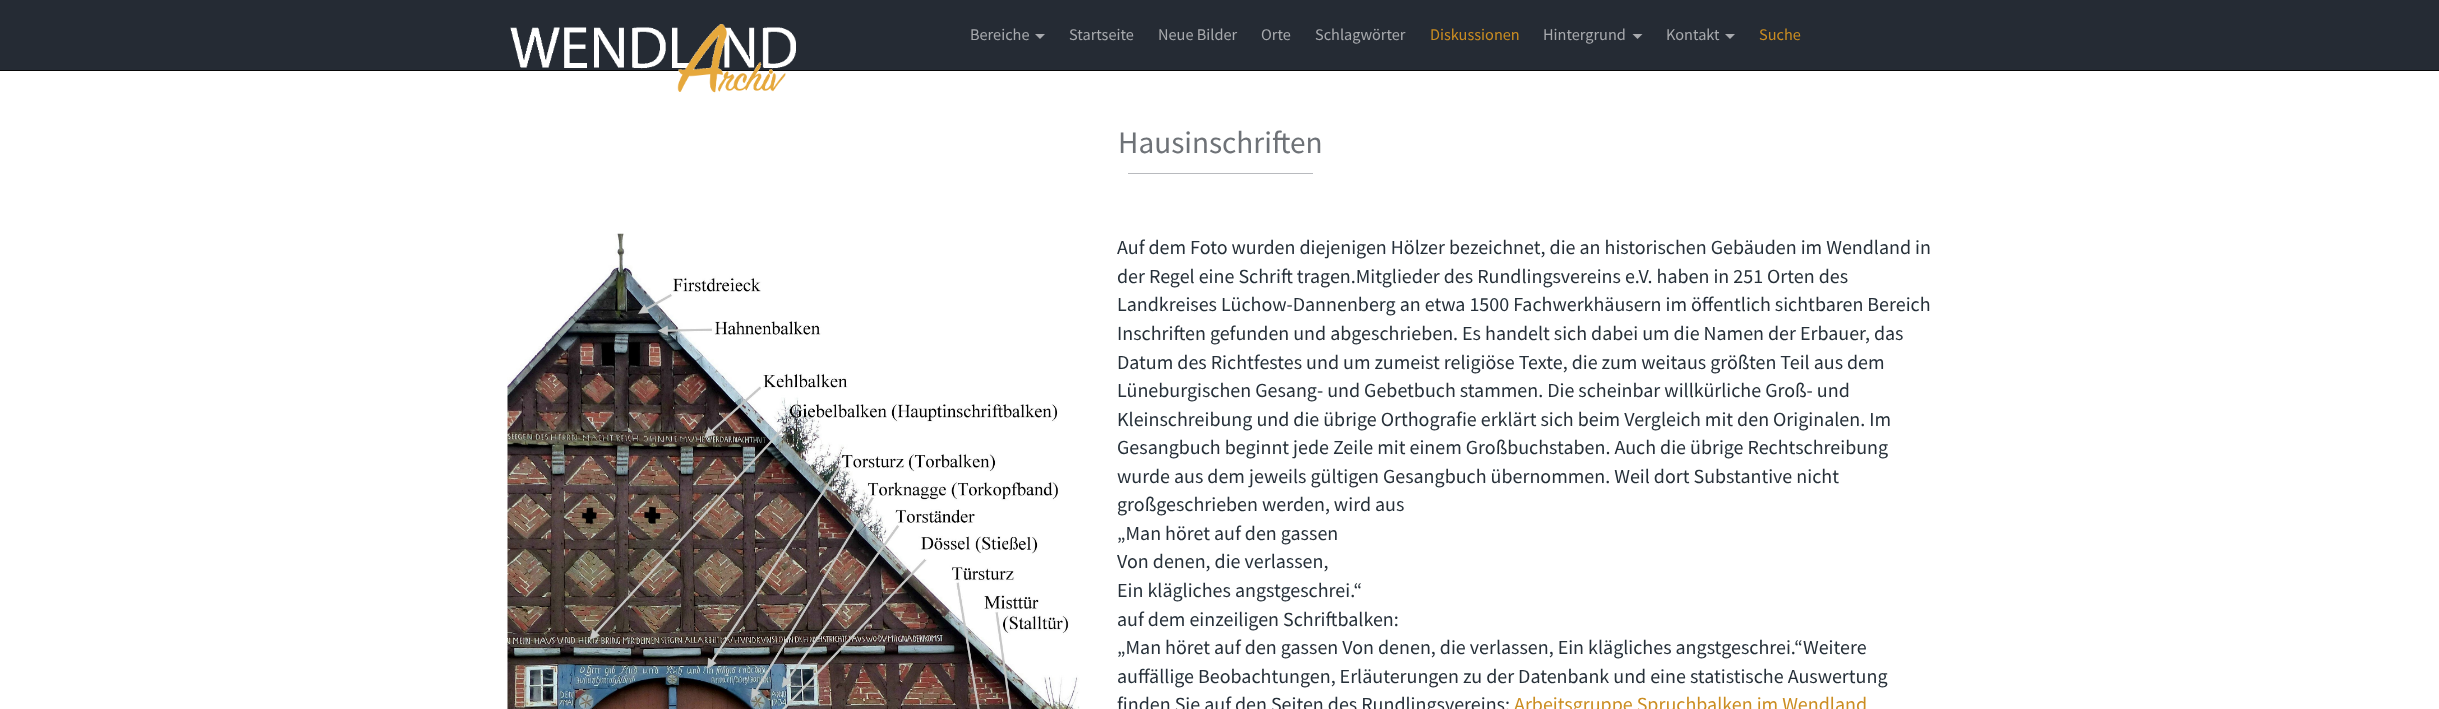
(async () => {
  const canvas = document.querySelector("canvas");
  canvas.width = 2439;
  canvas.height = 709;
  const ctx = canvas.getContext("2d");
  ctx.miterLimit = 4;
  ctx.fontKerning = "normal";
  async function loadImage(src) {
    const img = new Image();
    img.src = src;
    await img.decode();
    return img;
  }
  let path;

  ctx.fillStyle = "#ffffff";
  ctx.fillRect(0, 0, 2439, 709);
  ctx.fillStyle = "#252b34";
  ctx.fillRect(0, 0, 2439, 70);
  ctx.fillStyle = "#080808";
  ctx.fillRect(0, 70, 2439, 1);
  ctx.drawImage(await loadImage("img/1.png"), 510, 24, 286, 69);
  ctx.fillStyle = "#a8aaae";
  path = new Path2D("M1035 34H1045L1040 39Z");
  ctx.fill(path);
  path = new Path2D("M1632.5 34H1642.5L1637.5 39Z");
  ctx.fill(path);
  path = new Path2D("M1725 34H1735L1730 39Z");
  ctx.fill(path);
  ctx.fillStyle = "#b8babe";
  ctx.fillRect(1128, 173, 185, 1);
  ctx.drawImage(await loadImage("img/2.png"), 507, 233, 573, 476);
  ctx.font = "16.25px Source Sans Pro";
  ctx.fillStyle = "#a8aaae";
  for (const [text, x, y] of [
    ["Bereiche", 970, 40],
    ["Startseite", 1069, 40],
    ["Neue Bilder", 1158, 40],
    ["Orte", 1261, 40],
    ["Schlagwörter", 1315, 40],
  ]) {
    ctx.fillText(text, x, y);
  }
  ctx.fillStyle = "#cb8d21";
  ctx.fillText("Diskussionen", 1430, 40);
  ctx.fillStyle = "#a8aaae";
  ctx.fillText("Hintergrund", 1543, 40);
  ctx.fillText("Kontakt", 1666, 40);
  ctx.fillStyle = "#cb8d21";
  ctx.fillText("Suche", 1759, 40);
  ctx.font = "31.25px Source Sans Pro";
  ctx.fillStyle = "#6e7277";
  ctx.fillText("Hausinschriften", 1118, 153);
  ctx.font = "20px Source Sans Pro";
  ctx.fillStyle = "#263039";
  for (const [text, x, y] of [
    ["Auf dem Foto wurden diejenigen Hölzer bezeichnet, die an historischen Gebäuden im Wendland in", 1117, 254],
    ["der Regel eine Schrift tragen.Mitglieder des Rundlingsvereins e.V. haben in 251 Orten des", 1117, 283],
    ["Landkreises Lüchow-Dannenberg an etwa 1500 Fachwerkhäusern im öffentlich sichtbaren Bereich", 1117, 311],
    ["Inschriften gefunden und abgeschrieben. Es handelt sich dabei um die Namen der Erbauer, das", 1117, 340],
    ["Datum des Richtfestes und um zumeist religiöse Texte, die zum weitaus größten Teil aus dem", 1117, 369],
    ["Lüneburgischen Gesang- und Gebetbuch stammen. Die scheinbar willkürliche Groß- und", 1117, 397],
    ["Kleinschreibung und die übrige Orthografie erklärt sich beim Vergleich mit den Originalen. Im", 1117, 426],
    ["Gesangbuch beginnt jede Zeile mit einem Großbuchstaben. Auch die übrige Rechtschreibung", 1117, 454],
    ["wurde aus dem jeweils gültigen Gesangbuch übernommen. Weil dort Substantive nicht", 1117, 483],
    ["großgeschrieben werden, wird aus", 1117, 511],
    ["„Man höret auf den gassen", 1117, 540],
    ["Von denen, die verlassen,", 1117, 568],
    ["Ein klägliches angstgeschrei.“", 1117, 597],
    ["auf dem einzeiligen Schriftbalken:", 1117, 626],
    ["„Man höret auf den gassen Von denen, die verlassen, Ein klägliches angstgeschrei.“Weitere", 1117, 654],
    ["auffällige Beobachtungen, Erläuterungen zu der Datenbank und eine statistische Auswertung", 1117, 683],
    ["finden Sie auf den Seiten des Rundlingsvereins:", 1117, 711],
  ]) {
    ctx.fillText(text, x, y);
  }
  ctx.fillStyle = "#cb8d21";
  ctx.fillText("Arbeitsgruppe Spruchbalken im Wendland", 1514, 711);
})();
